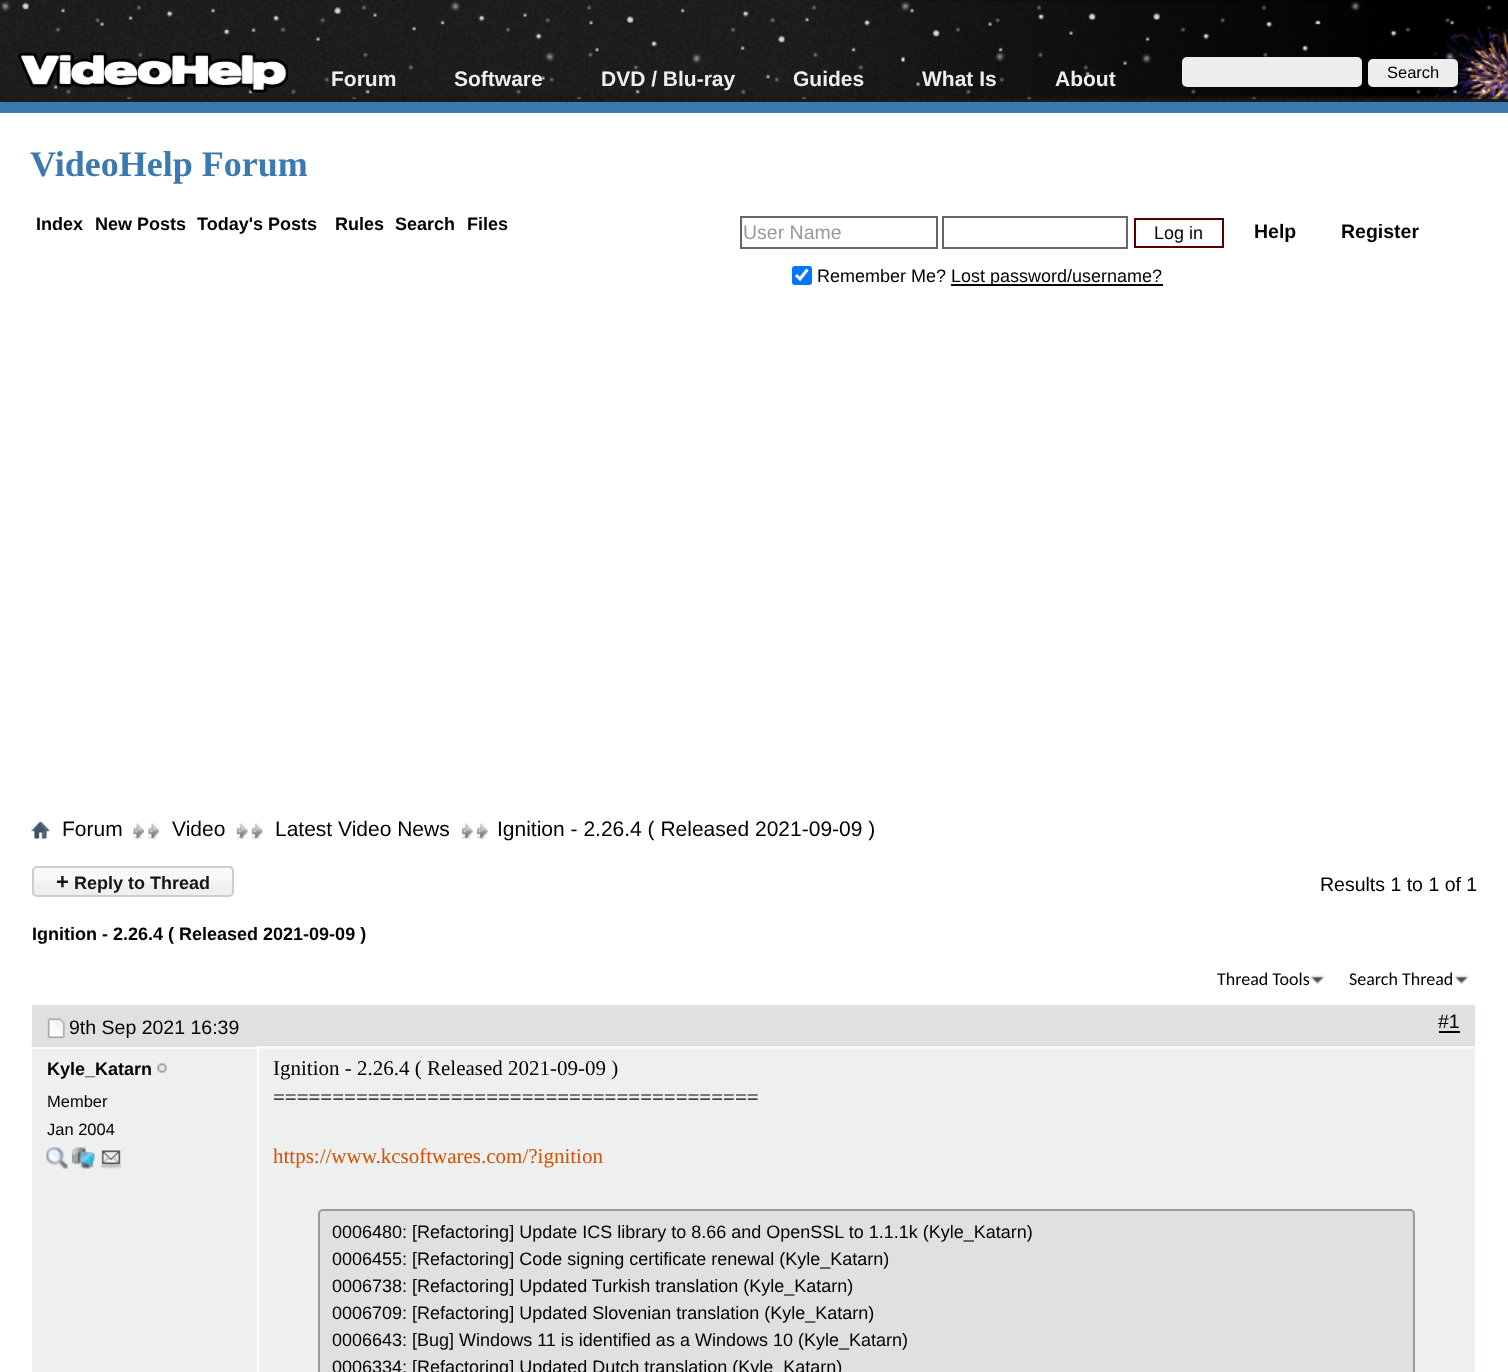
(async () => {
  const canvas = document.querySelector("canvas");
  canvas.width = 1508;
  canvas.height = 1372;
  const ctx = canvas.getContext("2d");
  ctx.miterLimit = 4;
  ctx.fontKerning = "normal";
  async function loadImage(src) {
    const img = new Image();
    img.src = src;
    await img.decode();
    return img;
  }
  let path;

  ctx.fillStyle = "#222222";
  ctx.fillRect(0, 0, 1508, 1372);
  ctx.drawImage(await loadImage("img/2.png"), 0, 0, 1508, 102);
  ctx.drawImage(await loadImage("img/1.png"), 0, 1, 1493, 98);
  ctx.fillStyle = "#3c79ae";
  ctx.fillRect(0, 102, 1508, 11);
  ctx.drawImage(await loadImage("img/3.png"), 18, 52, 270, 41);
  ctx.fillStyle = "#eeeeee";
  ctx.beginPath();
  ctx.roundRect(1182, 57, 180, 30, 5);
  ctx.fill();
  ctx.beginPath();
  ctx.roundRect(1368, 59, 90, 28, 5);
  ctx.fill();
  ctx.fillStyle = "#ffffff";
  ctx.fillRect(0, 113, 1508, 1259);
  ctx.strokeStyle = "#666666";
  ctx.lineWidth = 2;
  ctx.strokeRect(741, 217, 196, 31);
  ctx.strokeRect(943, 217, 184, 31);
  ctx.strokeStyle = "#540000";
  ctx.strokeRect(1135, 219, 88, 28);
  ctx.fillStyle = "#0075ff";
  ctx.beginPath();
  ctx.roundRect(792, 266, 20, 19, 3);
  ctx.fill();
  path = new Path2D("M796 275L800 279L807.5 269.5");
  ctx.strokeStyle = "#ffffff";
  ctx.lineWidth = 3.1;
  ctx.stroke(path);
  ctx.fillStyle = "#000000";
  ctx.fillRect(951, 284, 212, 2);
  ctx.drawImage(await loadImage("img/4.png"), 31, 821, 19, 18);
  ctx.drawImage(await loadImage("img/5.png"), 148, 823, 11, 16);
  ctx.drawImage(await loadImage("img/5.png"), 133, 823, 11, 16);
  ctx.drawImage(await loadImage("img/6.png"), 252, 823, 11, 16);
  ctx.drawImage(await loadImage("img/6.png"), 237, 823, 11, 16);
  ctx.drawImage(await loadImage("img/7.png"), 477, 823, 11, 16);
  ctx.drawImage(await loadImage("img/7.png"), 462, 823, 11, 16);
  ctx.fillStyle = "#efefef";
  ctx.beginPath();
  ctx.roundRect(32, 866, 202, 31, 5);
  ctx.fill();
  ctx.drawImage(await loadImage("img/8.png"), 32, 867, 202, 17);
  ctx.beginPath();
  ctx.roundRect(33, 867, 200, 29, 4);
  ctx.strokeStyle = "#cccccc";
  ctx.lineWidth = 2;
  ctx.stroke();
  ctx.drawImage(await loadImage("img/9.png"), 1310, 975, 15, 9);
  ctx.drawImage(await loadImage("img/9.png"), 1454, 975, 15, 9);
  ctx.fillStyle = "#dfe1e1";
  ctx.fillRect(32, 1005, 1443, 41);
  ctx.drawImage(await loadImage("img/10.png"), 47, 1018, 18, 20);
  ctx.fillStyle = "#000000";
  ctx.fillRect(1439, 1031, 21, 2);
  ctx.fillStyle = "#eef0f0";
  ctx.fillRect(32, 1209, 225, 163);
  ctx.drawImage(await loadImage("img/11.png"), 31, 1045, 1444, 4);
  ctx.fillRect(32, 1046, 225, 163);
  ctx.drawImage(await loadImage("img/12.png"), 31, 1045, 226, 4);
  ctx.drawImage(await loadImage("img/13.png"), 157, 1063, 10, 10);
  ctx.drawImage(await loadImage("img/14.png"), 46, 1147, 22, 22);
  ctx.drawImage(await loadImage("img/15.png"), 72, 1147, 23, 22);
  ctx.drawImage(await loadImage("img/16.png"), 100, 1150, 22, 19);
  for (const [x, y, w, h, color] of [
    [259, 1049, 1216, 323, "#eef0f0"],
    [257, 1046, 1218, 3, "#f9f9f9"],
    [257, 1046, 2, 3, "#ffffff"],
  ]) {
    ctx.fillStyle = color;
    ctx.fillRect(x, y, w, h);
  }
  ctx.fillStyle = "#dfe1e1";
  ctx.beginPath();
  ctx.roundRect(319, 1210, 1095, 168, 4);
  ctx.fill();
  ctx.strokeStyle = "#999999";
  ctx.stroke();
  ctx.font = "bold 21px Liberation Sans";
  ctx.fillStyle = "#eeeeee";
  for (const [text, x, y] of [
    ["Forum", 331, 86],
    ["Software", 454, 86],
    ["DVD / Blu-ray", 601, 86],
    ["Guides", 793, 86],
    ["What Is", 922, 86],
    ["About", 1055, 86],
  ]) {
    ctx.fillText(text, x, y);
  }
  ctx.font = "16.5px Liberation Sans";
  ctx.fillStyle = "#000000";
  ctx.fillText("Search", 1387, 78);
  ctx.font = "bold 36px Liberation Serif";
  ctx.fillStyle = "#3c79ae";
  ctx.fillText("VideoHelp Forum", 30, 176);
  ctx.font = "bold 18px Liberation Sans";
  ctx.fillStyle = "#000000";
  for (const [text, x, y] of [
    ["Index", 36, 230],
    ["New Posts", 95, 230],
    ["Today's Posts", 197, 230],
    ["Rules", 335, 230],
    ["Search", 395, 230],
    ["Files", 467, 230],
  ]) {
    ctx.fillText(text, x, y);
  }
  ctx.font = "19.5px Liberation Sans";
  ctx.fillStyle = "#999999";
  ctx.fillText("User Name", 743, 239);
  ctx.font = "18px Liberation Sans";
  ctx.fillStyle = "#000000";
  for (const [text, x, y] of [
    ["Log in", 1154, 239],
    ["Remember Me?", 817, 282],
    ["Lost password/username?", 951, 282],
  ]) {
    ctx.fillText(text, x, y);
  }
  ctx.font = "bold 19.5px Liberation Sans";
  ctx.fillText("Help", 1254, 238);
  ctx.fillText("Register", 1341, 238);
  ctx.font = "21px Liberation Sans";
  for (const [text, x, y] of [
    ["Forum", 62, 836],
    ["Video", 172, 836],
    ["Latest Video News", 275, 836],
    ["Ignition - 2.26.4 ( Released 2021-09-09 )", 497, 836],
  ]) {
    ctx.fillText(text, x, y);
  }
  ctx.font = "bold 22px Liberation Sans";
  ctx.fillStyle = "#151515";
  ctx.fillText("+", 56, 889);
  ctx.font = "bold 18px Liberation Sans";
  ctx.fillText("Reply to Thread", 74, 889);
  ctx.font = "19.5px Liberation Sans";
  ctx.fillStyle = "#000000";
  ctx.fillText("Results 1 to 1 of 1", 1320, 891);
  ctx.font = "bold 18px Liberation Sans";
  ctx.fillText("Ignition - 2.26.4 ( Released 2021-09-09 )", 32, 940);
  ctx.font = "18px Carlito";
  ctx.fillText("Thread Tools", 1217, 985);
  ctx.fillText("Search Thread", 1349, 985);
  ctx.font = "19.5px Liberation Sans";
  ctx.fillText("9th Sep 2021 16:39", 69, 1034);
  ctx.fillText("#1", 1438, 1028);
  ctx.font = "bold 18px Liberation Sans";
  ctx.fillText("Kyle_Katarn", 47, 1075);
  ctx.font = "16.5px Liberation Sans";
  ctx.fillText("Member", 47, 1107);
  ctx.fillText("Jan 2004", 47, 1135);
  ctx.font = "21px Liberation Serif";
  ctx.fillText("Ignition - 2.26.4 ( Released 2021-09-09 )", 273, 1075);
  ctx.fillText("=========================================", 273, 1104);
  ctx.fillStyle = "#d35100";
  ctx.fillText("https://www.kcsoftwares.com/?ignition", 273, 1163);
  ctx.font = "18px Liberation Sans";
  ctx.fillStyle = "#000000";
  for (const [text, x, y] of [
    ["0006480: [Refactoring] Update ICS library to 8.66 and OpenSSL to 1.1.1k (Kyle_Katarn)", 332, 1238],
    ["0006455: [Refactoring] Code signing certificate renewal (Kyle_Katarn)", 332, 1265],
    ["0006738: [Refactoring] Updated Turkish translation (Kyle_Katarn)", 332, 1292],
    ["0006709: [Refactoring] Updated Slovenian translation (Kyle_Katarn)", 332, 1319],
    ["0006643: [Bug] Windows 11 is identified as a Windows 10 (Kyle_Katarn)", 332, 1346],
    ["0006334: [Refactoring] Updated Dutch translation (Kyle_Katarn)", 332, 1373],
  ]) {
    ctx.fillText(text, x, y);
  }
})();
